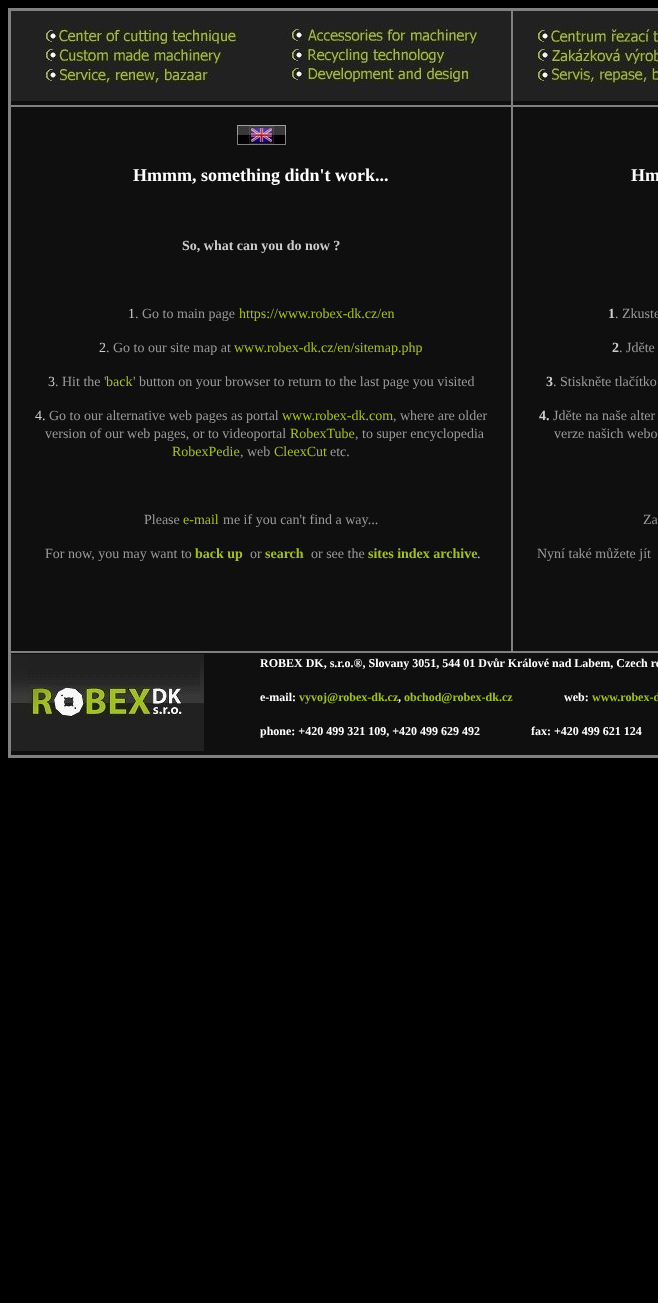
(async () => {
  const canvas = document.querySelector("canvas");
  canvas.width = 658;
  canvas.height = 1303;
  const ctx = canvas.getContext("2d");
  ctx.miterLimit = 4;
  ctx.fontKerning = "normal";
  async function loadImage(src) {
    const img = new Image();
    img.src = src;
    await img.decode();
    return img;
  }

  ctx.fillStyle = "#000000";
  ctx.fillRect(0, 0, 658, 1303);
  ctx.fillStyle = "#0f0f0f";
  ctx.fillRect(11, 101, 647, 654);
  ctx.strokeStyle = "#808080";
  ctx.lineWidth = 2;
  ctx.strokeRect(9, 9, 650, 748);
  ctx.lineWidth = 1;
  ctx.strokeRect(10.5, 10.5, 501, 95);
  ctx.drawImage(await loadImage("img/1.png"), 11, 11, 500, 90);
  ctx.strokeRect(512.5, 10.5, 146, 95);
  ctx.drawImage(await loadImage("img/2.png"), 513, 11, 145, 90);
  ctx.strokeRect(10.5, 106.5, 501, 545);
  ctx.drawImage(await loadImage("img/3.png"), 237, 125, 49, 20);
  ctx.strokeRect(512.5, 106.5, 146, 545);
  ctx.strokeRect(10.5, 652.5, 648, 103);
  ctx.drawImage(await loadImage("img/4.png"), 11, 654, 193, 97);
  ctx.font = "bold 18px Liberation Serif";
  ctx.fillStyle = "#ffffff";
  ctx.fillText("Hmmm, something didn't work...", 133, 181);
  ctx.font = "bold 14px Liberation Serif";
  ctx.fillStyle = "#cccccc";
  ctx.fillText("So, what can you do now ?", 182, 250);
  ctx.font = "14px Liberation Serif";
  ctx.fillText("1", 128, 318);
  ctx.fillStyle = "#999999";
  ctx.fillText(". Go to main page", 135, 318);
  ctx.fillStyle = "#a1c118";
  ctx.fillText("https://www.robex-dk.cz/en", 239, 318);
  ctx.fillStyle = "#cccccc";
  ctx.fillText("2", 99, 352);
  ctx.fillStyle = "#999999";
  ctx.fillText(". Go to our site map at", 106, 352);
  ctx.fillStyle = "#a1c118";
  ctx.fillText("www.robex-dk.cz/en/sitemap.php", 234, 352);
  ctx.fillStyle = "#cccccc";
  ctx.fillText("3", 48, 386);
  ctx.fillStyle = "#999999";
  ctx.fillText(". Hit the '", 55, 386);
  ctx.fillStyle = "#a1c118";
  ctx.fillText("back", 106, 386);
  ctx.fillStyle = "#999999";
  ctx.fillText("' button on your browser to return to the last page you visited", 133, 386);
  ctx.fillStyle = "#cccccc";
  ctx.fillText("4.", 35, 420);
  ctx.fillStyle = "#999999";
  ctx.fillText("Go to our alternative web pages as portal", 49, 420);
  ctx.fillStyle = "#a1c118";
  ctx.fillText("www.robex-dk.com", 282, 420);
  ctx.fillStyle = "#999999";
  ctx.fillText(", where are older", 393, 420);
  ctx.fillText("version of our web pages, or to videoportal", 45, 438);
  ctx.fillStyle = "#a1c118";
  ctx.fillText("RobexTube", 290, 438);
  ctx.fillStyle = "#999999";
  ctx.fillText(", to super encyclopedia", 355, 438);
  ctx.fillStyle = "#a1c118";
  ctx.fillText("RobexPedie", 172, 456);
  ctx.fillStyle = "#999999";
  ctx.fillText(", web", 240, 456);
  ctx.fillStyle = "#a1c118";
  ctx.fillText("CleexCut", 274, 456);
  ctx.fillStyle = "#999999";
  ctx.fillText("etc.", 330, 456);
  ctx.fillText("Please", 144, 524);
  ctx.fillStyle = "#a1c118";
  ctx.fillText("e-mail", 183, 524);
  ctx.fillStyle = "#999999";
  ctx.fillText("me if you can't find a way...", 223, 524);
  ctx.fillText("For now, you may want to", 45, 558);
  ctx.font = "bold 14px Liberation Serif";
  ctx.fillStyle = "#a1c118";
  ctx.fillText("back up", 195, 558);
  ctx.font = "14px Liberation Serif";
  ctx.fillStyle = "#999999";
  ctx.fillText("or", 250, 558);
  ctx.font = "bold 14px Liberation Serif";
  ctx.fillStyle = "#a1c118";
  ctx.fillText("search", 265, 558);
  ctx.font = "14px Liberation Serif";
  ctx.fillStyle = "#999999";
  ctx.fillText("or see the", 311, 558);
  ctx.font = "bold 14px Liberation Serif";
  ctx.fillStyle = "#a1c118";
  ctx.fillText("sites index archive", 368, 558);
  ctx.font = "14px Liberation Serif";
  ctx.fillStyle = "#c0c0c0";
  ctx.fillText(".", 477, 558);
  ctx.font = "bold 18px Liberation Serif";
  ctx.fillStyle = "#ffffff";
  ctx.fillText("Hm", 631, 181);
  ctx.font = "bold 14px Liberation Serif";
  ctx.fillStyle = "#cccccc";
  ctx.fillText("1", 608, 318);
  ctx.font = "14px Liberation Serif";
  ctx.fillStyle = "#999999";
  ctx.fillText(". Zkuste", 615, 318);
  ctx.font = "bold 14px Liberation Serif";
  ctx.fillStyle = "#cccccc";
  ctx.fillText("2", 612, 352);
  ctx.font = "14px Liberation Serif";
  ctx.fillStyle = "#999999";
  ctx.fillText(". Jděte", 619, 352);
  ctx.font = "bold 14px Liberation Serif";
  ctx.fillStyle = "#cccccc";
  ctx.fillText("3", 546, 386);
  ctx.font = "14px Liberation Serif";
  ctx.fillStyle = "#999999";
  ctx.fillText(". Stiskněte tlačítko", 553, 386);
  ctx.font = "bold 14px Liberation Serif";
  ctx.fillStyle = "#cccccc";
  ctx.fillText("4.", 539, 420);
  ctx.font = "14px Liberation Serif";
  ctx.fillStyle = "#999999";
  for (const [text, x, y] of [
    ["Jděte na naše alter", 553, 420],
    ["verze našich webo", 554, 438],
    ["Za", 643, 524],
    ["Nyní také můžete jít", 537, 558],
  ]) {
    ctx.fillText(text, x, y);
  }
  ctx.font = "bold 12px Liberation Serif";
  ctx.fillStyle = "#ffffff";
  ctx.fillText("ROBEX DK, s.r.o.®, Slovany 3051, 544 01 Dvůr Králové nad Labem, Czech re", 260, 667);
  ctx.fillText("e-mail:", 260, 701);
  ctx.fillStyle = "#a1c118";
  ctx.fillText("vyvoj@robex-dk.cz", 299, 701);
  ctx.fillStyle = "#ffffff";
  ctx.fillText(",", 398, 701);
  ctx.fillStyle = "#a1c118";
  ctx.fillText("obchod@robex-dk.cz", 404, 701);
  ctx.fillStyle = "#ffffff";
  ctx.fillText("web:", 564, 701);
  ctx.fillStyle = "#a1c118";
  ctx.fillText("www.robex-d", 592, 701);
  ctx.fillStyle = "#ffffff";
  ctx.fillText("phone: +420 499 321 109, +420 499 629 492", 260, 735);
  ctx.fillText("fax: +420 499 621 124", 531, 735);
})();
